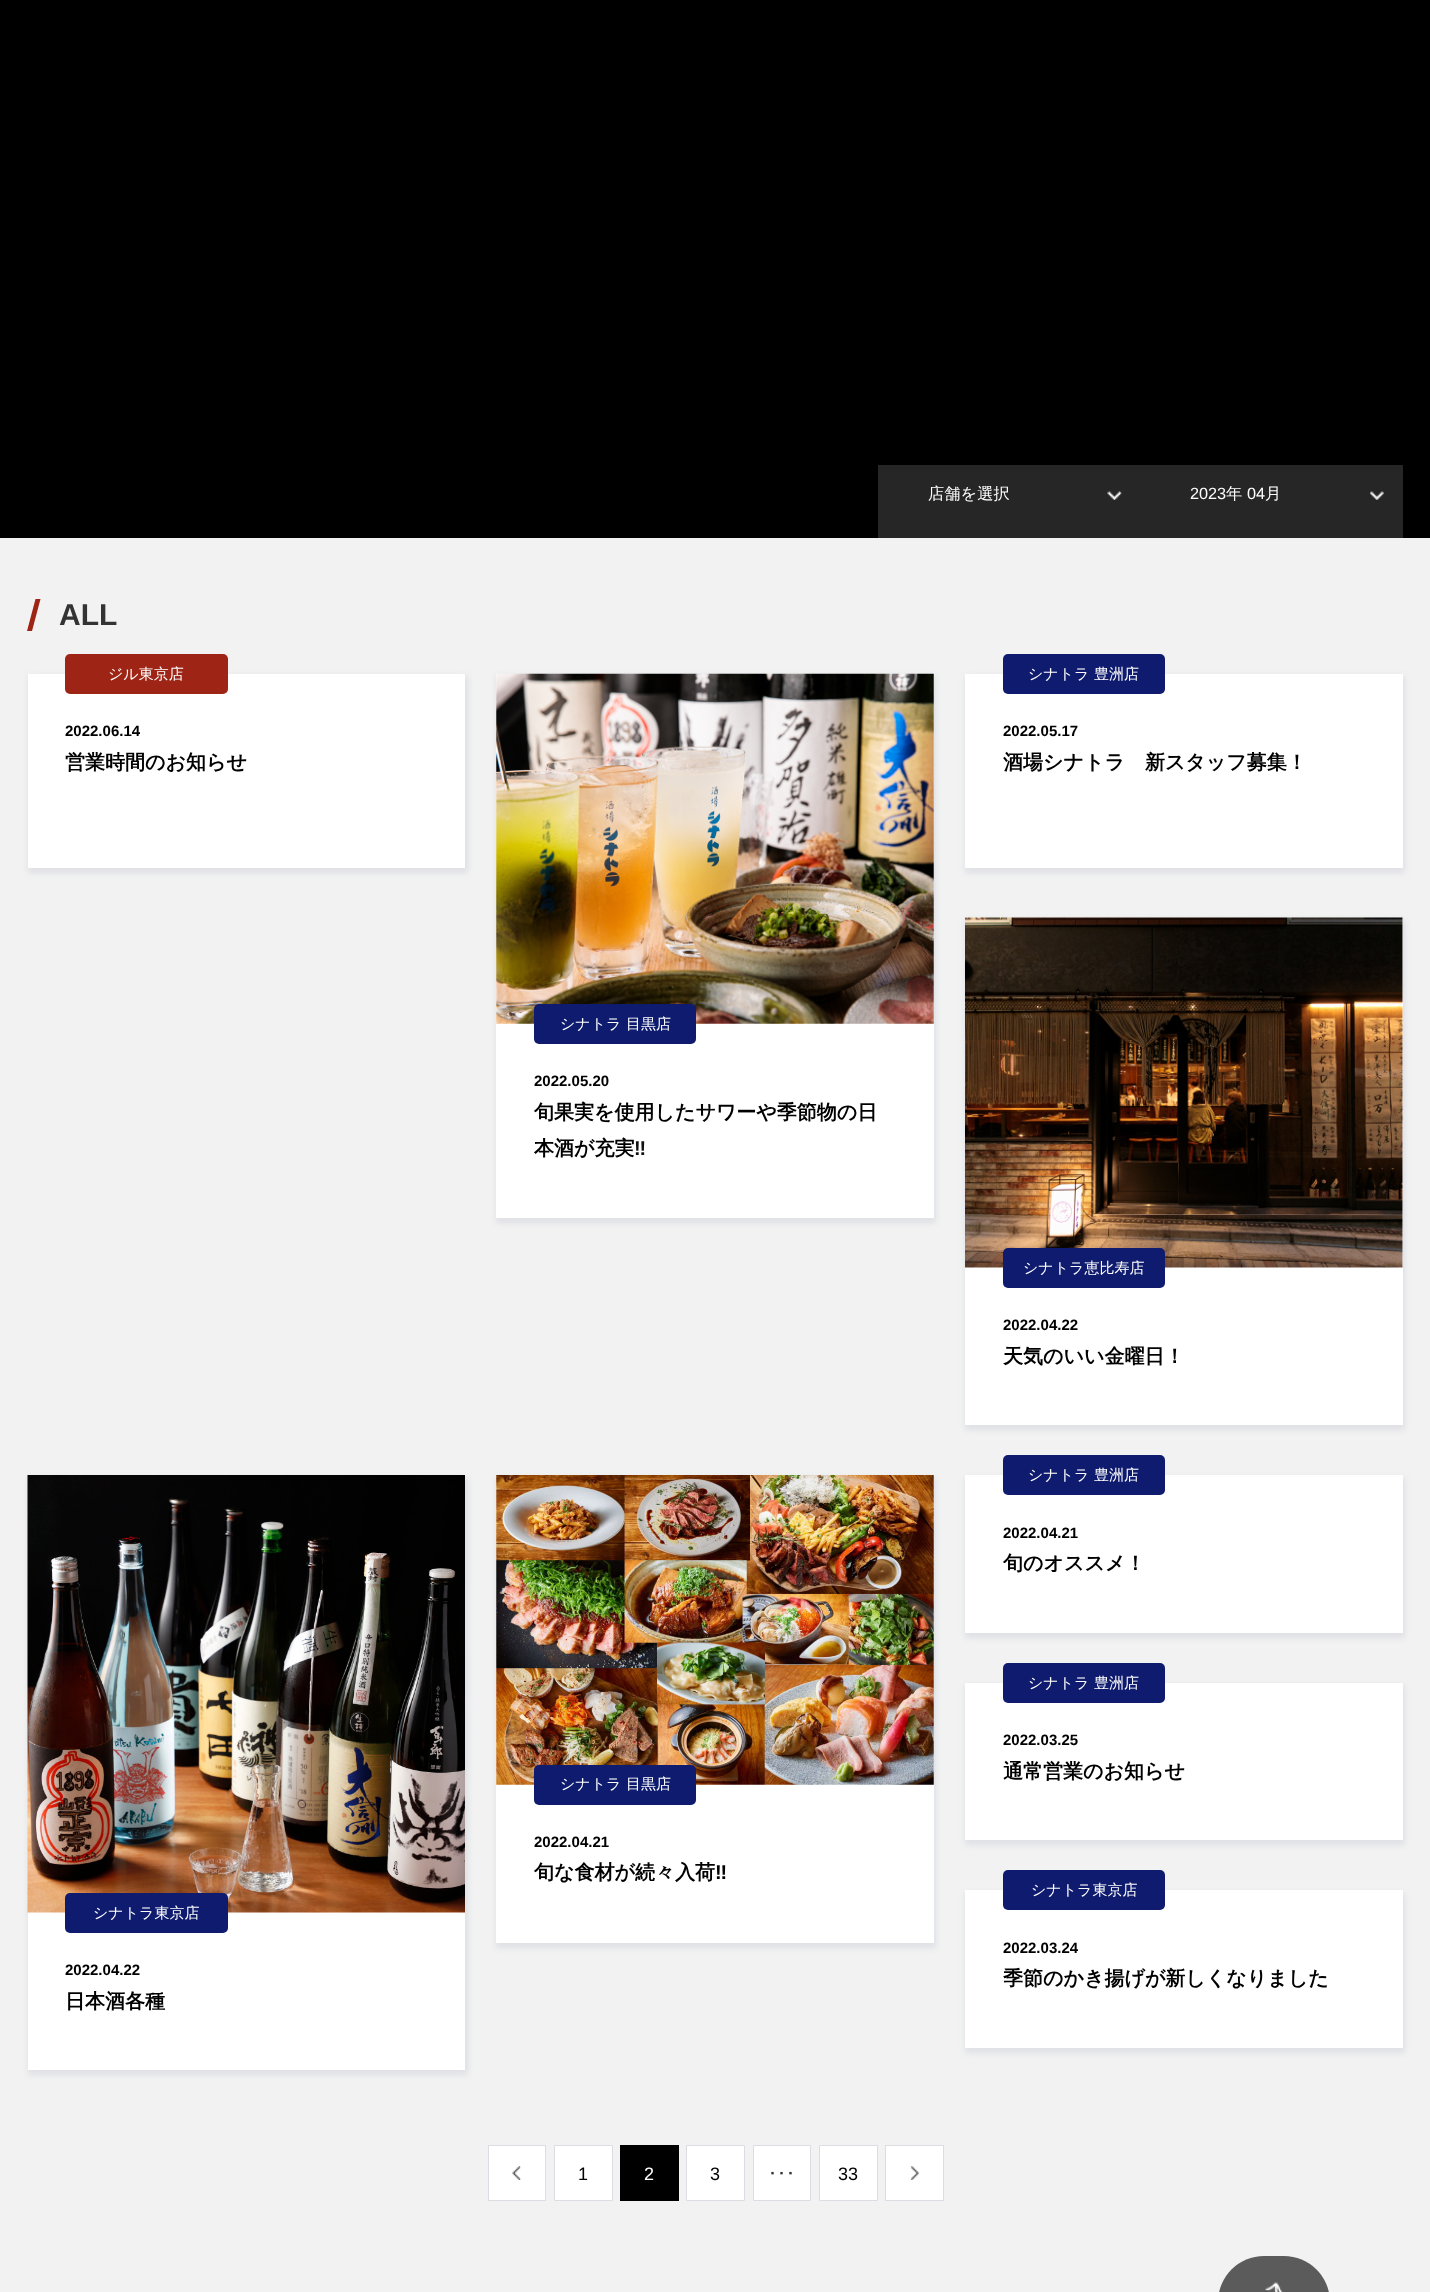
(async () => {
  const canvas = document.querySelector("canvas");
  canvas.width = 1430;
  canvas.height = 2292;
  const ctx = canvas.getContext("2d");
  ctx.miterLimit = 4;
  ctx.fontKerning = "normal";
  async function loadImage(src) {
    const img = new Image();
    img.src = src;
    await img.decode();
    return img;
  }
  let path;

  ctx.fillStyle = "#f2f2f2";
  ctx.fillRect(0, 0, 1430, 2292);
  ctx.fillStyle = "#000000";
  ctx.fillRect(0, 0, 1430, 538);
  ctx.fillStyle = "#262626";
  ctx.fillRect(878, 465, 525, 73);
  ctx.drawImage(await loadImage("img/1.png"), 1107, 491, 15, 9);
  ctx.drawImage(await loadImage("img/2.png"), 1370, 491, 14, 9);
  ctx.fillStyle = "#9e2416";
  path = new Path2D("M35.5 599H40.5L32 631H27Z");
  ctx.fill(path);
  ctx.fillStyle = "rgba(62, 71, 117, 0.1)";
  ctx.filter = "blur(3px)";
  ctx.beginPath();
  ctx.rect(28, 676, 440, 197);
  ctx.fill();
  ctx.filter = "none";
  ctx.fillStyle = "#ffffff";
  ctx.fillRect(28, 674, 437, 194);
  ctx.fillStyle = "#9e2416";
  ctx.beginPath();
  ctx.roundRect(65, 654, 163, 40, 5);
  ctx.fill();
  ctx.fillStyle = "rgba(62, 71, 117, 0.1)";
  ctx.filter = "blur(3px)";
  ctx.beginPath();
  ctx.rect(965, 676, 440, 197);
  ctx.fill();
  ctx.filter = "none";
  ctx.fillStyle = "#ffffff";
  ctx.fillRect(965, 674, 438, 194);
  ctx.fillStyle = "#0f1b6e";
  ctx.beginPath();
  ctx.roundRect(1003, 654, 162, 40, 5);
  ctx.fill();
  ctx.fillStyle = "rgba(62, 71, 117, 0.1)";
  ctx.filter = "blur(3px)";
  ctx.beginPath();
  ctx.rect(496, 676, 440, 547);
  ctx.fill();
  ctx.filter = "none";
  ctx.fillStyle = "#ffffff";
  ctx.fillRect(496, 674, 438, 544);
  ctx.drawImage(await loadImage("img/3.png"), 496, 673, 438, 351);
  ctx.fillStyle = "#0f1b6e";
  ctx.beginPath();
  ctx.roundRect(534, 1004, 162, 40, 5);
  ctx.fill();
  ctx.fillStyle = "rgba(62, 71, 117, 0.1)";
  ctx.filter = "blur(3px)";
  ctx.beginPath();
  ctx.rect(965, 920, 440, 510);
  ctx.fill();
  ctx.filter = "none";
  ctx.fillStyle = "#ffffff";
  ctx.fillRect(965, 918, 438, 507);
  ctx.drawImage(await loadImage("img/4.png"), 965, 917, 438, 351);
  ctx.fillStyle = "#0f1b6e";
  ctx.beginPath();
  ctx.roundRect(1003, 1248, 162, 40, 5);
  ctx.fill();
  ctx.fillStyle = "rgba(62, 71, 117, 0.1)";
  ctx.filter = "blur(3px)";
  ctx.beginPath();
  ctx.rect(965, 1478, 440, 160);
  ctx.fill();
  ctx.filter = "none";
  ctx.fillStyle = "#ffffff";
  ctx.fillRect(965, 1475, 438, 158);
  ctx.fillStyle = "#0f1b6e";
  ctx.beginPath();
  ctx.roundRect(1003, 1455, 162, 40, 5);
  ctx.fill();
  ctx.fillStyle = "rgba(62, 71, 117, 0.1)";
  ctx.filter = "blur(3px)";
  ctx.beginPath();
  ctx.rect(965, 1685, 440, 160);
  ctx.fill();
  ctx.filter = "none";
  ctx.fillStyle = "#ffffff";
  ctx.fillRect(965, 1683, 438, 157);
  ctx.fillStyle = "#0f1b6e";
  ctx.beginPath();
  ctx.roundRect(1003, 1663, 162, 40, 5);
  ctx.fill();
  ctx.fillStyle = "rgba(62, 71, 117, 0.1)";
  ctx.filter = "blur(3px)";
  ctx.beginPath();
  ctx.rect(496, 1478, 440, 470);
  ctx.fill();
  ctx.filter = "none";
  ctx.fillStyle = "#ffffff";
  ctx.fillRect(496, 1475, 438, 468);
  ctx.drawImage(await loadImage("img/5.png"), 496, 1475, 438, 310);
  ctx.fillStyle = "#0f1b6e";
  ctx.beginPath();
  ctx.roundRect(534, 1765, 162, 40, 5);
  ctx.fill();
  ctx.fillStyle = "rgba(62, 71, 117, 0.1)";
  ctx.filter = "blur(3px)";
  ctx.beginPath();
  ctx.rect(28, 1478, 440, 597);
  ctx.fill();
  ctx.filter = "none";
  ctx.fillStyle = "#ffffff";
  ctx.fillRect(28, 1912, 437, 158);
  ctx.drawImage(await loadImage("img/6.png"), 27, 1475, 438, 438);
  ctx.fillStyle = "#0f1b6e";
  ctx.beginPath();
  ctx.roundRect(65, 1893, 163, 40, 5);
  ctx.fill();
  ctx.fillStyle = "rgba(62, 71, 117, 0.1)";
  ctx.filter = "blur(3px)";
  ctx.beginPath();
  ctx.rect(965, 1893, 440, 160);
  ctx.fill();
  ctx.filter = "none";
  ctx.fillStyle = "#ffffff";
  ctx.fillRect(965, 1890, 438, 158);
  ctx.fillStyle = "#0f1b6e";
  ctx.beginPath();
  ctx.roundRect(1003, 1870, 162, 40, 5);
  ctx.fill();
  ctx.fillStyle = "#ffffff";
  ctx.fillRect(489, 2146, 56, 54);
  ctx.drawImage(await loadImage("img/7.png"), 512, 2166, 9, 14);
  ctx.strokeStyle = "#dcdde3";
  ctx.strokeRect(488.5, 2145.5, 57, 55);
  ctx.beginPath();
  ctx.rect(554.5, 2145.5, 58, 55);
  ctx.fill();
  ctx.stroke();
  ctx.fillStyle = "#000000";
  ctx.fillRect(620, 2145, 59, 56);
  ctx.fillStyle = "#ffffff";
  ctx.beginPath();
  ctx.rect(686.5, 2145.5, 58, 55);
  ctx.fill();
  ctx.stroke();
  ctx.beginPath();
  ctx.rect(753.5, 2145.5, 57, 55);
  ctx.fill();
  ctx.stroke();
  ctx.beginPath();
  ctx.rect(819.5, 2145.5, 58, 55);
  ctx.fill();
  ctx.stroke();
  ctx.fillRect(886, 2146, 57, 54);
  ctx.drawImage(await loadImage("img/8.png"), 910, 2166, 9, 14);
  ctx.strokeRect(885.5, 2145.5, 58, 55);
  ctx.fillStyle = "#5b5b5b";
  ctx.beginPath();
  ctx.roundRect(1218, 2256, 112, 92, 56);
  ctx.fill();
  ctx.drawImage(await loadImage("img/9.png"), 1265, 2282, 18, 10);
  ctx.font = "500 16.25px WenQuanYi Zen Hei";
  ctx.fillStyle = "#ffffff";
  ctx.fillText("店舗を選択", 928, 499);
  ctx.font = "16.25px Liberation Sans";
  ctx.fillText("2023", 1190, 499);
  ctx.font = "500 16.25px WenQuanYi Zen Hei";
  ctx.fillText("年", 1226, 499);
  ctx.font = "16.25px Liberation Sans";
  ctx.fillText("04", 1247, 499);
  ctx.font = "500 16.25px WenQuanYi Zen Hei";
  ctx.fillText("月", 1265, 499);
  ctx.font = "bold 30px Liberation Sans";
  ctx.fillStyle = "#333333";
  ctx.fillText("ALL", 59, 625);
  ctx.font = "500 15px WenQuanYi Zen Hei";
  ctx.fillStyle = "#ffffff";
  ctx.fillText("ジル東京店", 108, 679);
  ctx.font = "bold 15px Liberation Sans";
  ctx.fillStyle = "#000000";
  ctx.fillText("2022.06.14", 65, 736);
  ctx.font = "bold 20px WenQuanYi Zen Hei";
  ctx.fillText("営業時間のお知らせ", 65, 769);
  ctx.font = "500 15px WenQuanYi Zen Hei";
  ctx.fillStyle = "#ffffff";
  ctx.fillText("シナトラ 豊洲店", 1028, 679);
  ctx.font = "bold 15px Liberation Sans";
  ctx.fillStyle = "#000000";
  ctx.fillText("2022.05.17", 1003, 736);
  ctx.font = "bold 20px WenQuanYi Zen Hei";
  ctx.fillText("酒場シナトラ　新スタッフ募集！", 1003, 769);
  ctx.font = "500 15px WenQuanYi Zen Hei";
  ctx.fillStyle = "#ffffff";
  ctx.fillText("シナトラ 目黒店", 560, 1029);
  ctx.font = "bold 15px Liberation Sans";
  ctx.fillStyle = "#000000";
  ctx.fillText("2022.05.20", 534, 1086);
  ctx.font = "bold 20px WenQuanYi Zen Hei";
  ctx.fillText("旬果実を使用したサワーや季節物の日", 534, 1119);
  ctx.fillText("本酒が充実", 534, 1155);
  ctx.font = "bold 20px Liberation Sans";
  ctx.fillText("‼", 634, 1155);
  ctx.font = "500 15px WenQuanYi Zen Hei";
  ctx.fillStyle = "#ffffff";
  ctx.fillText("シナトラ恵比寿店", 1023, 1273);
  ctx.font = "bold 15px Liberation Sans";
  ctx.fillStyle = "#000000";
  ctx.fillText("2022.04.22", 1003, 1330);
  ctx.font = "bold 20px WenQuanYi Zen Hei";
  ctx.fillText("天気のいい金曜日！", 1003, 1363);
  ctx.font = "500 15px WenQuanYi Zen Hei";
  ctx.fillStyle = "#ffffff";
  ctx.fillText("シナトラ 豊洲店", 1028, 1480);
  ctx.font = "bold 15px Liberation Sans";
  ctx.fillStyle = "#000000";
  ctx.fillText("2022.04.21", 1003, 1538);
  ctx.font = "bold 20px WenQuanYi Zen Hei";
  ctx.fillText("旬のオススメ！", 1003, 1570);
  ctx.font = "500 15px WenQuanYi Zen Hei";
  ctx.fillStyle = "#ffffff";
  ctx.fillText("シナトラ 豊洲店", 1028, 1688);
  ctx.font = "bold 15px Liberation Sans";
  ctx.fillStyle = "#000000";
  ctx.fillText("2022.03.25", 1003, 1745);
  ctx.font = "bold 20px WenQuanYi Zen Hei";
  ctx.fillText("通常営業のお知らせ", 1003, 1778);
  ctx.font = "500 15px WenQuanYi Zen Hei";
  ctx.fillStyle = "#ffffff";
  ctx.fillText("シナトラ 目黒店", 560, 1789);
  ctx.font = "bold 15px Liberation Sans";
  ctx.fillStyle = "#000000";
  ctx.fillText("2022.04.21", 534, 1847);
  ctx.font = "bold 20px WenQuanYi Zen Hei";
  ctx.fillText("旬な食材が続々入荷", 534, 1879);
  ctx.font = "bold 20px Liberation Sans";
  ctx.fillText("‼", 715, 1879);
  ctx.font = "500 15px WenQuanYi Zen Hei";
  ctx.fillStyle = "#ffffff";
  ctx.fillText("シナトラ東京店", 93, 1918);
  ctx.font = "bold 15px Liberation Sans";
  ctx.fillStyle = "#000000";
  ctx.fillText("2022.04.22", 65, 1975);
  ctx.font = "bold 20px WenQuanYi Zen Hei";
  ctx.fillText("日本酒各種", 65, 2008);
  ctx.font = "500 15px WenQuanYi Zen Hei";
  ctx.fillStyle = "#ffffff";
  ctx.fillText("シナトラ東京店", 1031, 1895);
  ctx.font = "bold 15px Liberation Sans";
  ctx.fillStyle = "#000000";
  ctx.fillText("2022.03.24", 1003, 1953);
  ctx.font = "bold 20px WenQuanYi Zen Hei";
  ctx.fillText("季節のかき揚げが新しくなりました", 1003, 1985);
  ctx.font = "18px Liberation Sans";
  ctx.fillText("1", 578, 2180);
  ctx.fillStyle = "#ffffff";
  ctx.fillText("2", 644, 2180);
  ctx.fillStyle = "#000000";
  ctx.fillText("3", 710, 2180);
  ctx.font = "18px IPAPGothic";
  ctx.fillStyle = "#333333";
  ctx.fillText("･･･", 768, 2180);
  ctx.font = "18px Liberation Sans";
  ctx.fillStyle = "#000000";
  ctx.fillText("33", 838, 2180);
  ctx.drawImage(await loadImage("img/10.png"), 620, 1107, 93, 48);
})();
